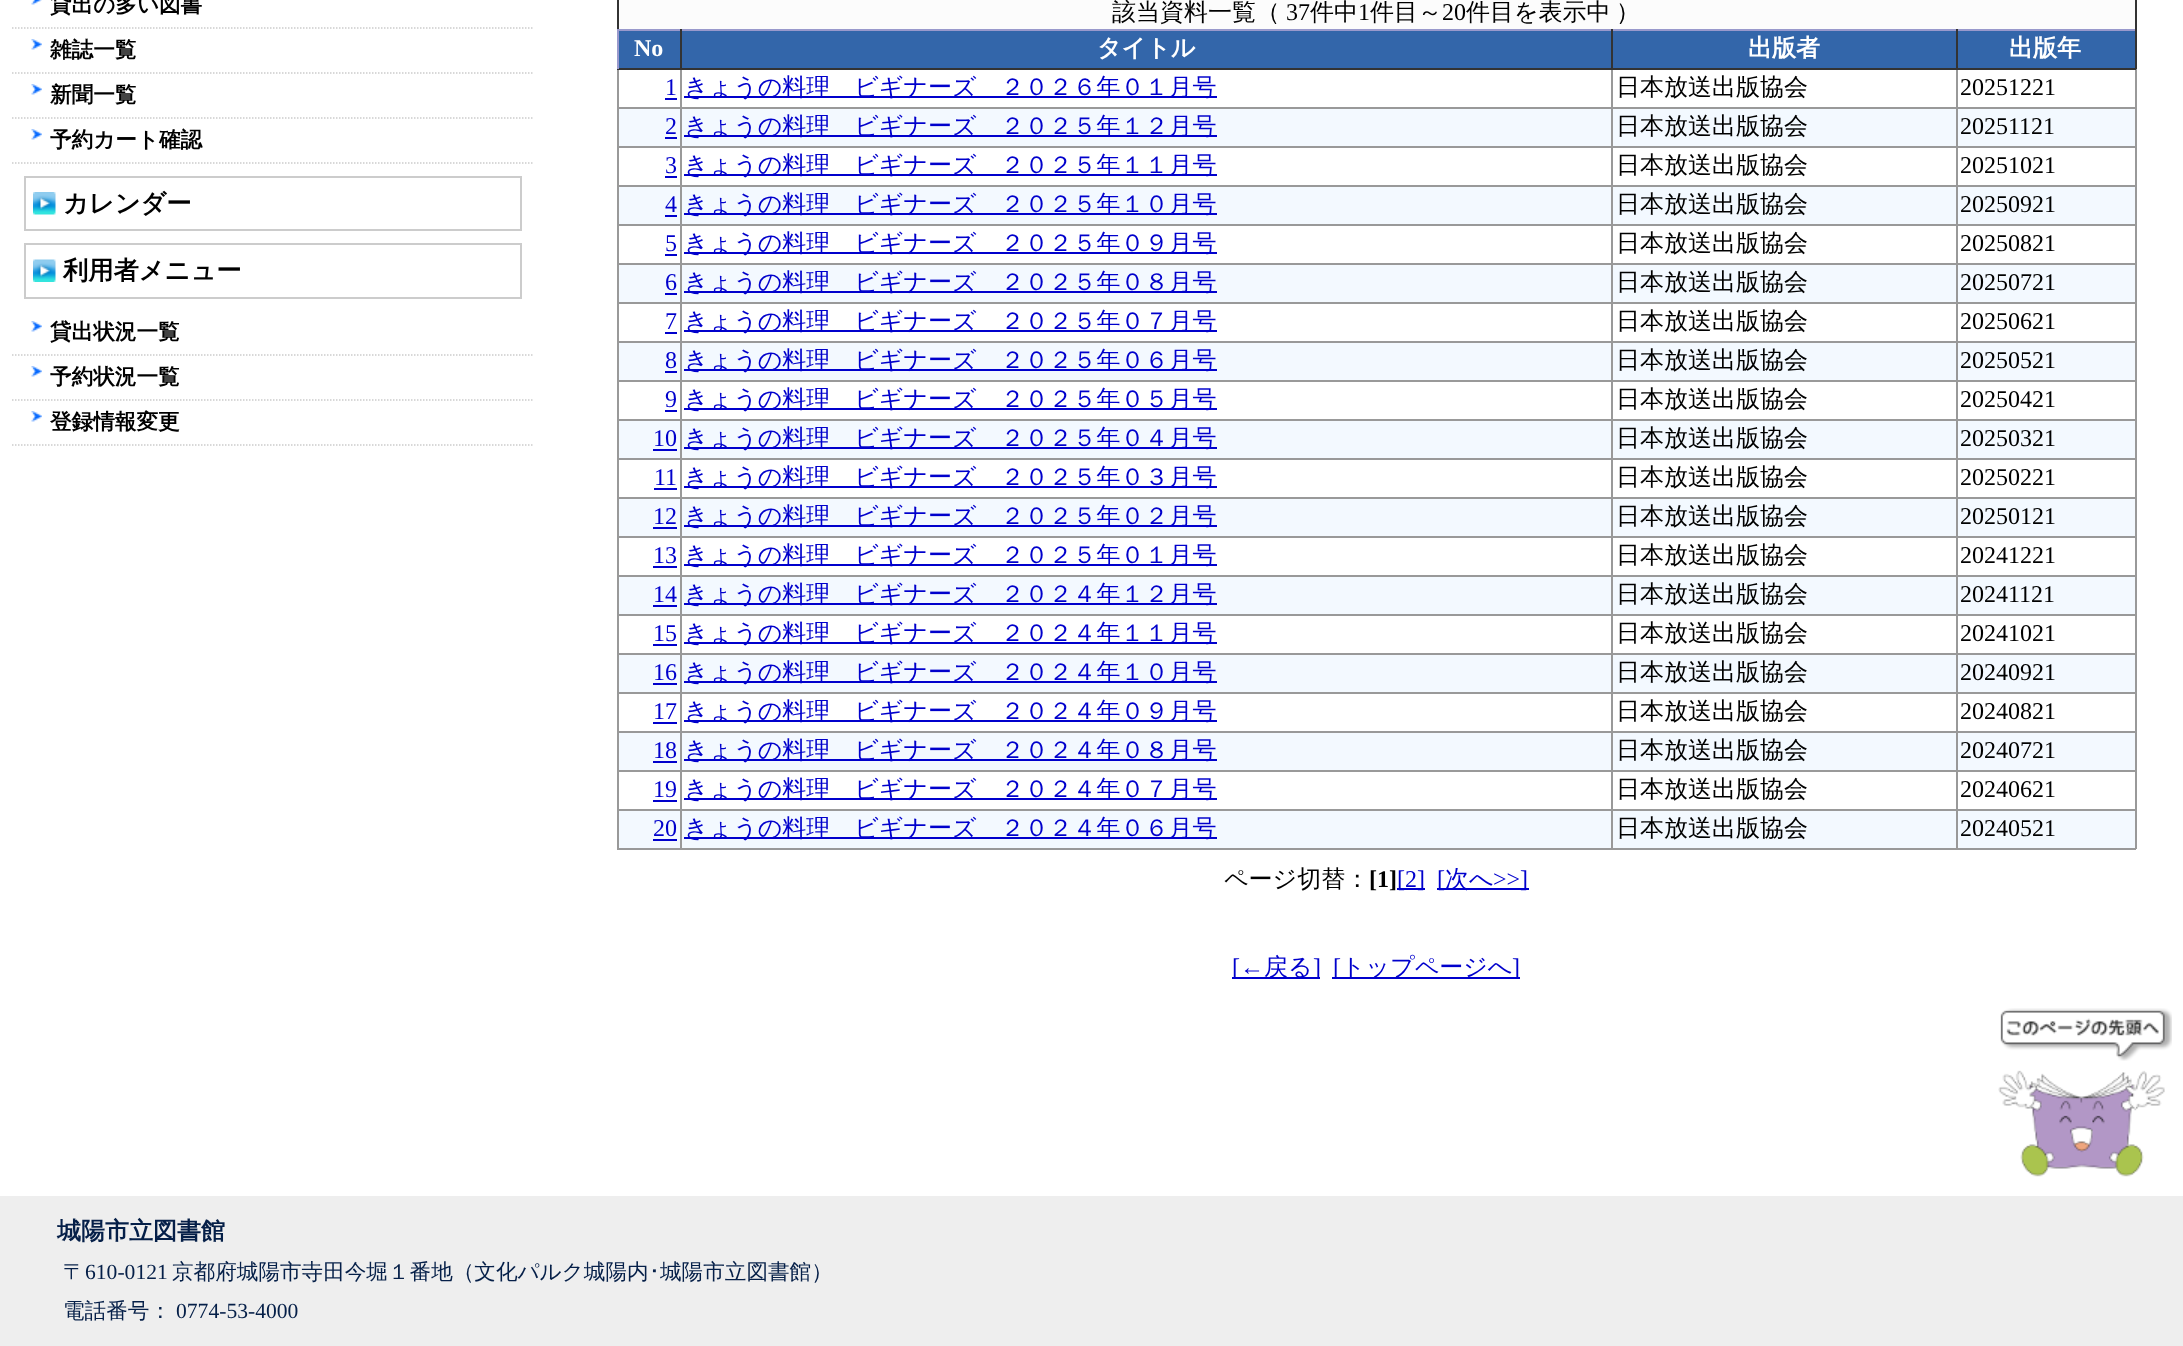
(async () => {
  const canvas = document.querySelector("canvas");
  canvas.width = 2183;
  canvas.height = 1346;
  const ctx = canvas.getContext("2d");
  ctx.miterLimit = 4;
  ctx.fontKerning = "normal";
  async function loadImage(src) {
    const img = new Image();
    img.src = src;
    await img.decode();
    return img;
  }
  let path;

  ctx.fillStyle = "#ffffff";
  ctx.fillRect(0, 0, 2183, 1346);
  ctx.drawImage(await loadImage("img/1.png"), 31, 0, 11, 5);
  path = new Path2D("M12 28H534");
  ctx.strokeStyle = "#cccccc";
  ctx.lineWidth = 1.5;
  ctx.setLineDash([1.5, 1.5]);
  ctx.stroke(path);
  ctx.drawImage(await loadImage("img/2.png"), 31, 39, 11, 11);
  path = new Path2D("M12 73H534");
  ctx.stroke(path);
  ctx.drawImage(await loadImage("img/2.png"), 31, 84, 11, 11);
  path = new Path2D("M12 118H534");
  ctx.stroke(path);
  ctx.drawImage(await loadImage("img/2.png"), 31, 129, 11, 11);
  path = new Path2D("M12 163H534");
  ctx.stroke(path);
  ctx.drawImage(await loadImage("img/3.png"), 33, 192, 23, 23);
  ctx.lineWidth = 2;
  ctx.setLineDash([]);
  ctx.strokeRect(25, 177, 496, 53);
  ctx.drawImage(await loadImage("img/4.png"), 33, 259, 23, 23);
  ctx.strokeRect(25, 244, 496, 54);
  ctx.drawImage(await loadImage("img/2.png"), 31, 321, 11, 11);
  path = new Path2D("M12 355H534");
  ctx.lineWidth = 1.5;
  ctx.setLineDash([1.5, 1.5]);
  ctx.stroke(path);
  ctx.drawImage(await loadImage("img/2.png"), 31, 366, 11, 11);
  path = new Path2D("M12 400H534");
  ctx.stroke(path);
  ctx.drawImage(await loadImage("img/2.png"), 31, 411, 11, 11);
  path = new Path2D("M12 445H534");
  ctx.stroke(path);
  for (const [x, y, w, h, color] of [
    [2135, 0, 2, 29, "#333333"],
    [617, 0, 2, 29, "#333333"],
    [619, 0, 1516, 29, "#fcfcfc"],
    [619, 31, 61, 37, "#3366aa"],
    [617, 29, 1519, 2, "#9999cc"],
    [1956, 107, 180, 2, "#999999"],
    [1956, 146, 180, 2, "#999999"],
    [1956, 185, 180, 2, "#999999"],
    [1956, 224, 180, 2, "#999999"],
    [1956, 263, 180, 2, "#999999"],
    [1956, 302, 180, 2, "#999999"],
    [1956, 341, 180, 2, "#999999"],
    [1956, 380, 180, 2, "#999999"],
    [1956, 419, 180, 2, "#999999"],
    [1956, 458, 180, 2, "#999999"],
    [1956, 497, 180, 2, "#999999"],
    [1956, 536, 180, 2, "#999999"],
    [1956, 575, 180, 2, "#999999"],
    [1956, 614, 180, 2, "#999999"],
    [1956, 653, 180, 2, "#999999"],
    [1956, 692, 180, 2, "#999999"],
    [1956, 731, 180, 2, "#999999"],
    [1956, 770, 180, 2, "#999999"],
    [1956, 809, 180, 2, "#999999"],
    [2135, 809, 2, 40, "#999999"],
    [2135, 770, 2, 40, "#999999"],
    [2135, 731, 2, 40, "#999999"],
    [2135, 692, 2, 40, "#999999"],
    [2135, 653, 2, 40, "#999999"],
    [2135, 614, 2, 40, "#999999"],
    [2135, 575, 2, 40, "#999999"],
    [2135, 536, 2, 40, "#999999"],
    [2135, 497, 2, 40, "#999999"],
    [2135, 458, 2, 40, "#999999"],
    [2135, 419, 2, 40, "#999999"],
    [2135, 380, 2, 40, "#999999"],
    [2135, 341, 2, 40, "#999999"],
    [2135, 302, 2, 40, "#999999"],
    [2135, 263, 2, 40, "#999999"],
    [2135, 224, 2, 40, "#999999"],
    [2135, 185, 2, 40, "#999999"],
    [2135, 146, 2, 40, "#999999"],
    [2135, 68, 2, 79, "#999999"],
    [2135, 29, 2, 40, "#333333"],
    [1956, 848, 180, 2, "#999999"],
    [1956, 809, 2, 40, "#999999"],
    [1611, 809, 347, 2, "#999999"],
    [1956, 770, 2, 40, "#999999"],
    [1611, 770, 347, 2, "#999999"],
    [1956, 731, 2, 40, "#999999"],
    [1611, 731, 347, 2, "#999999"],
    [1956, 692, 2, 40, "#999999"],
    [1611, 692, 347, 2, "#999999"],
    [1956, 653, 2, 40, "#999999"],
    [1611, 653, 347, 2, "#999999"],
    [1956, 614, 2, 40, "#999999"],
    [1611, 614, 347, 2, "#999999"],
    [1956, 575, 2, 40, "#999999"],
    [1611, 575, 347, 2, "#999999"],
    [1956, 536, 2, 40, "#999999"],
    [1611, 536, 347, 2, "#999999"],
    [1956, 497, 2, 40, "#999999"],
    [1611, 497, 347, 2, "#999999"],
    [1956, 458, 2, 40, "#999999"],
    [1611, 458, 347, 2, "#999999"],
    [1956, 419, 2, 40, "#999999"],
    [1611, 419, 347, 2, "#999999"],
    [1956, 380, 2, 40, "#999999"],
    [1611, 380, 347, 2, "#999999"],
    [1956, 341, 2, 40, "#999999"],
    [1611, 341, 347, 2, "#999999"],
    [1956, 302, 2, 40, "#999999"],
    [1611, 302, 347, 2, "#999999"],
    [1956, 263, 2, 40, "#999999"],
    [1611, 263, 347, 2, "#999999"],
    [1956, 224, 2, 40, "#999999"],
    [1611, 224, 347, 2, "#999999"],
    [1956, 185, 2, 40, "#999999"],
    [1611, 185, 347, 2, "#999999"],
    [1956, 146, 2, 40, "#999999"],
    [1611, 146, 347, 2, "#999999"],
    [1956, 107, 2, 40, "#999999"],
    [1611, 107, 347, 2, "#999999"],
    [1956, 68, 2, 40, "#999999"],
    [1956, 68, 180, 2, "#333333"],
    [1956, 29, 2, 40, "#333333"],
    [1611, 848, 347, 2, "#999999"],
    [1611, 809, 2, 40, "#999999"],
    [680, 809, 933, 2, "#999999"],
    [1611, 770, 2, 40, "#999999"],
    [680, 770, 933, 2, "#999999"],
    [1611, 731, 2, 40, "#999999"],
    [680, 731, 933, 2, "#999999"],
    [1611, 692, 2, 40, "#999999"],
    [680, 692, 933, 2, "#999999"],
    [1611, 653, 2, 40, "#999999"],
    [680, 653, 933, 2, "#999999"],
    [1611, 614, 2, 40, "#999999"],
    [680, 614, 933, 2, "#999999"],
    [1611, 575, 2, 40, "#999999"],
    [680, 575, 933, 2, "#999999"],
    [1611, 536, 2, 40, "#999999"],
    [680, 536, 933, 2, "#999999"],
    [1611, 497, 2, 40, "#999999"],
    [680, 497, 933, 2, "#999999"],
    [1611, 458, 2, 40, "#999999"],
    [680, 458, 933, 2, "#999999"],
    [1611, 419, 2, 40, "#999999"],
    [680, 419, 933, 2, "#999999"],
    [1611, 380, 2, 40, "#999999"],
    [680, 380, 933, 2, "#999999"],
    [1611, 341, 2, 40, "#999999"],
    [680, 341, 933, 2, "#999999"],
    [1611, 302, 2, 40, "#999999"],
    [680, 302, 933, 2, "#999999"],
    [1611, 263, 2, 40, "#999999"],
    [680, 263, 933, 2, "#999999"],
    [1611, 224, 2, 40, "#999999"],
    [680, 224, 933, 2, "#999999"],
    [1611, 185, 2, 40, "#999999"],
    [680, 185, 933, 2, "#999999"],
    [1611, 146, 2, 40, "#999999"],
    [680, 146, 933, 2, "#999999"],
    [1611, 107, 2, 40, "#999999"],
    [680, 107, 933, 2, "#999999"],
    [1611, 68, 2, 40, "#999999"],
    [1611, 68, 347, 2, "#333333"],
    [1611, 29, 2, 40, "#333333"],
    [680, 848, 933, 2, "#999999"],
    [680, 809, 2, 40, "#999999"],
    [617, 809, 64, 2, "#999999"],
    [680, 770, 2, 40, "#999999"],
    [617, 770, 64, 2, "#999999"],
    [680, 731, 2, 40, "#999999"],
    [617, 731, 64, 2, "#999999"],
    [680, 692, 2, 40, "#999999"],
    [617, 692, 64, 2, "#999999"],
    [680, 653, 2, 40, "#999999"],
    [617, 653, 64, 2, "#999999"],
    [680, 614, 2, 40, "#999999"],
    [617, 614, 64, 2, "#999999"],
    [680, 575, 2, 40, "#999999"],
    [617, 575, 64, 2, "#999999"],
    [680, 536, 2, 40, "#999999"],
    [617, 536, 64, 2, "#999999"],
    [680, 497, 2, 40, "#999999"],
    [617, 497, 64, 2, "#999999"],
    [680, 458, 2, 40, "#999999"],
    [617, 458, 64, 2, "#999999"],
    [680, 419, 2, 40, "#999999"],
    [617, 419, 64, 2, "#999999"],
    [680, 380, 2, 40, "#999999"],
    [617, 380, 64, 2, "#999999"],
    [680, 341, 2, 40, "#999999"],
    [617, 341, 64, 2, "#999999"],
    [680, 302, 2, 40, "#999999"],
    [617, 302, 64, 2, "#999999"],
    [680, 263, 2, 40, "#999999"],
    [617, 263, 64, 2, "#999999"],
    [680, 224, 2, 40, "#999999"],
    [617, 224, 64, 2, "#999999"],
    [680, 185, 2, 40, "#999999"],
    [617, 185, 64, 2, "#999999"],
    [680, 146, 2, 40, "#999999"],
    [617, 146, 64, 2, "#999999"],
    [680, 107, 2, 40, "#999999"],
    [617, 107, 64, 2, "#999999"],
    [680, 68, 2, 40, "#999999"],
    [680, 68, 933, 2, "#333333"],
    [680, 29, 2, 40, "#333333"],
    [617, 848, 64, 2, "#999999"],
    [617, 809, 2, 40, "#999999"],
    [617, 770, 2, 40, "#999999"],
    [617, 731, 2, 40, "#999999"],
    [617, 692, 2, 40, "#999999"],
    [617, 653, 2, 40, "#999999"],
    [617, 614, 2, 40, "#999999"],
    [617, 575, 2, 40, "#999999"],
    [617, 536, 2, 40, "#999999"],
    [617, 497, 2, 40, "#999999"],
    [617, 458, 2, 40, "#999999"],
    [617, 419, 2, 40, "#999999"],
    [617, 380, 2, 40, "#999999"],
    [617, 341, 2, 40, "#999999"],
    [617, 302, 2, 40, "#999999"],
    [617, 263, 2, 40, "#999999"],
    [617, 224, 2, 40, "#999999"],
    [617, 185, 2, 40, "#999999"],
    [617, 146, 2, 40, "#999999"],
    [617, 68, 2, 79, "#999999"],
    [617, 68, 64, 2, "#333333"],
    [617, 29, 2, 40, "#9999cc"],
    [682, 31, 929, 37, "#3366aa"],
    [1613, 31, 343, 37, "#3366aa"],
    [1958, 31, 177, 37, "#3366aa"],
    [665, 98, 12, 2, "#0000cc"],
    [684, 96, 533, 2, "#0000cc"],
    [619, 109, 61, 37, "#f3f9ff"],
    [665, 137, 12, 2, "#0000cc"],
    [682, 109, 929, 37, "#f3f9ff"],
    [684, 135, 533, 2, "#0000cc"],
    [1613, 109, 343, 37, "#f3f9ff"],
    [1958, 109, 177, 37, "#f3f9ff"],
    [665, 176, 12, 2, "#0000cc"],
    [684, 174, 533, 2, "#0000cc"],
    [619, 187, 61, 37, "#f3f9ff"],
    [665, 215, 12, 2, "#0000cc"],
    [682, 187, 929, 37, "#f3f9ff"],
    [684, 213, 533, 2, "#0000cc"],
    [1613, 187, 343, 37, "#f3f9ff"],
    [1958, 187, 177, 37, "#f3f9ff"],
    [665, 254, 12, 2, "#0000cc"],
    [684, 252, 533, 2, "#0000cc"],
    [619, 265, 61, 37, "#f3f9ff"],
    [665, 293, 12, 2, "#0000cc"],
    [682, 265, 929, 37, "#f3f9ff"],
    [684, 291, 533, 2, "#0000cc"],
    [1613, 265, 343, 37, "#f3f9ff"],
    [1958, 265, 177, 37, "#f3f9ff"],
    [665, 332, 12, 2, "#0000cc"],
    [684, 330, 533, 2, "#0000cc"],
    [619, 343, 61, 37, "#f3f9ff"],
    [665, 371, 12, 2, "#0000cc"],
    [682, 343, 929, 37, "#f3f9ff"],
    [684, 369, 533, 2, "#0000cc"],
    [1613, 343, 343, 37, "#f3f9ff"],
    [1958, 343, 177, 37, "#f3f9ff"],
    [665, 410, 12, 2, "#0000cc"],
    [684, 408, 533, 2, "#0000cc"],
    [619, 421, 61, 37, "#f3f9ff"],
    [653, 449, 24, 2, "#0000cc"],
    [682, 421, 929, 37, "#f3f9ff"],
    [684, 447, 533, 2, "#0000cc"],
    [1613, 421, 343, 37, "#f3f9ff"],
    [1958, 421, 177, 37, "#f3f9ff"],
    [654, 488, 23, 2, "#0000cc"],
    [684, 486, 533, 2, "#0000cc"],
    [619, 499, 61, 37, "#f3f9ff"],
    [653, 527, 24, 2, "#0000cc"],
    [682, 499, 929, 37, "#f3f9ff"],
    [684, 525, 533, 2, "#0000cc"],
    [1613, 499, 343, 37, "#f3f9ff"],
    [1958, 499, 177, 37, "#f3f9ff"],
    [653, 566, 24, 2, "#0000cc"],
    [684, 564, 533, 2, "#0000cc"],
    [619, 577, 61, 37, "#f3f9ff"],
    [653, 605, 24, 2, "#0000cc"],
    [682, 577, 929, 37, "#f3f9ff"],
    [684, 603, 533, 2, "#0000cc"],
    [1613, 577, 343, 37, "#f3f9ff"],
    [1958, 577, 177, 37, "#f3f9ff"],
    [653, 644, 24, 2, "#0000cc"],
    [684, 642, 533, 2, "#0000cc"],
    [619, 655, 61, 37, "#f3f9ff"],
    [653, 683, 24, 2, "#0000cc"],
    [682, 655, 929, 37, "#f3f9ff"],
    [684, 681, 533, 2, "#0000cc"],
    [1613, 655, 343, 37, "#f3f9ff"],
    [1958, 655, 177, 37, "#f3f9ff"],
    [653, 722, 24, 2, "#0000cc"],
    [684, 720, 533, 2, "#0000cc"],
    [619, 733, 61, 37, "#f3f9ff"],
    [653, 761, 24, 2, "#0000cc"],
    [682, 733, 929, 37, "#f3f9ff"],
    [684, 759, 533, 2, "#0000cc"],
    [1613, 733, 343, 37, "#f3f9ff"],
    [1958, 733, 177, 37, "#f3f9ff"],
    [653, 800, 24, 2, "#0000cc"],
    [684, 798, 533, 2, "#0000cc"],
    [619, 811, 61, 37, "#f3f9ff"],
    [653, 839, 24, 2, "#0000cc"],
    [682, 811, 929, 37, "#f3f9ff"],
    [684, 837, 533, 2, "#0000cc"],
    [1613, 811, 343, 37, "#f3f9ff"],
    [1958, 811, 177, 37, "#f3f9ff"],
    [1397, 888, 28, 2, "#0000cc"],
    [1437, 888, 92, 2, "#0000cc"],
    [1232, 977, 88, 2, "#0000cc"],
    [1332, 977, 188, 2, "#0000cc"],
  ]) {
    ctx.fillStyle = color;
    ctx.fillRect(x, y, w, h);
  }
  ctx.drawImage(await loadImage("img/5.png"), 2000, 1008, 172, 53);
  ctx.drawImage(await loadImage("img/6.png"), 1998, 1070, 167, 107);
  ctx.fillStyle = "#eeeeee";
  ctx.fillRect(0, 1196, 2183, 150);
  ctx.font = "bold 21.6px WenQuanYi Zen Hei";
  ctx.fillStyle = "#000000";
  for (const [text, x, y] of [
    ["貸出の多い図書", 50, 12],
    ["雑誌一覧", 50, 57],
    ["新聞一覧", 50, 102],
    ["予約カート確認", 50, 147],
  ]) {
    ctx.fillText(text, x, y);
  }
  ctx.font = "bold 25.25px WenQuanYi Zen Hei";
  ctx.fillText("カレンダー", 63, 212);
  ctx.fillText("利用者メニュー", 63, 279);
  ctx.font = "bold 21.6px WenQuanYi Zen Hei";
  for (const [text, x, y] of [
    ["貸出状況一覧", 50, 339],
    ["予約状況一覧", 50, 384],
    ["登録情報変更", 50, 429],
  ]) {
    ctx.fillText(text, x, y);
  }
  ctx.font = "500 24px WenQuanYi Zen Hei";
  ctx.fillText("該当資料一覧（", 1112, 20);
  ctx.font = "24px Liberation Serif";
  ctx.fillText("37", 1286, 20);
  ctx.font = "500 24px WenQuanYi Zen Hei";
  ctx.fillText("件中", 1310, 20);
  ctx.font = "24px Liberation Serif";
  ctx.fillText("1", 1358, 20);
  ctx.font = "500 24px WenQuanYi Zen Hei";
  ctx.fillText("件目～", 1370, 20);
  ctx.font = "24px Liberation Serif";
  ctx.fillText("20", 1442, 20);
  ctx.font = "500 24px WenQuanYi Zen Hei";
  ctx.fillText("件目を表示中", 1466, 20);
  ctx.fillText("）", 1616, 20);
  ctx.font = "bold 24px Liberation Serif";
  ctx.fillStyle = "#ffffff";
  ctx.fillText("No", 634, 56);
  ctx.font = "bold 24px WenQuanYi Zen Hei";
  for (const [text, x, y] of [
    ["タイトル", 1097, 56],
    ["出版者", 1748, 56],
    ["出版年", 2009, 56],
  ]) {
    ctx.fillText(text, x, y);
  }
  ctx.font = "24px Liberation Serif";
  ctx.fillStyle = "#0000cc";
  ctx.fillText("1", 665, 95);
  ctx.font = "500 24px WenQuanYi Zen Hei";
  ctx.fillText("きょうの料理　ビギナーズ　２０２６年０１月号", 684, 95);
  ctx.fillStyle = "#000000";
  ctx.fillText("日本放送出版協会", 1616, 95);
  ctx.font = "24px Liberation Serif";
  ctx.fillText("20251221", 1960, 95);
  ctx.fillStyle = "#0000cc";
  ctx.fillText("2", 665, 134);
  ctx.font = "500 24px WenQuanYi Zen Hei";
  ctx.fillText("きょうの料理　ビギナーズ　２０２５年１２月号", 684, 134);
  ctx.fillStyle = "#000000";
  ctx.fillText("日本放送出版協会", 1616, 134);
  ctx.font = "24px Liberation Serif";
  ctx.fillText("20251121", 1960, 134);
  ctx.fillStyle = "#0000cc";
  ctx.fillText("3", 665, 173);
  ctx.font = "500 24px WenQuanYi Zen Hei";
  ctx.fillText("きょうの料理　ビギナーズ　２０２５年１１月号", 684, 173);
  ctx.fillStyle = "#000000";
  ctx.fillText("日本放送出版協会", 1616, 173);
  ctx.font = "24px Liberation Serif";
  ctx.fillText("20251021", 1960, 173);
  ctx.fillStyle = "#0000cc";
  ctx.fillText("4", 665, 212);
  ctx.font = "500 24px WenQuanYi Zen Hei";
  ctx.fillText("きょうの料理　ビギナーズ　２０２５年１０月号", 684, 212);
  ctx.fillStyle = "#000000";
  ctx.fillText("日本放送出版協会", 1616, 212);
  ctx.font = "24px Liberation Serif";
  ctx.fillText("20250921", 1960, 212);
  ctx.fillStyle = "#0000cc";
  ctx.fillText("5", 665, 251);
  ctx.font = "500 24px WenQuanYi Zen Hei";
  ctx.fillText("きょうの料理　ビギナーズ　２０２５年０９月号", 684, 251);
  ctx.fillStyle = "#000000";
  ctx.fillText("日本放送出版協会", 1616, 251);
  ctx.font = "24px Liberation Serif";
  ctx.fillText("20250821", 1960, 251);
  ctx.fillStyle = "#0000cc";
  ctx.fillText("6", 665, 290);
  ctx.font = "500 24px WenQuanYi Zen Hei";
  ctx.fillText("きょうの料理　ビギナーズ　２０２５年０８月号", 684, 290);
  ctx.fillStyle = "#000000";
  ctx.fillText("日本放送出版協会", 1616, 290);
  ctx.font = "24px Liberation Serif";
  ctx.fillText("20250721", 1960, 290);
  ctx.fillStyle = "#0000cc";
  ctx.fillText("7", 665, 329);
  ctx.font = "500 24px WenQuanYi Zen Hei";
  ctx.fillText("きょうの料理　ビギナーズ　２０２５年０７月号", 684, 329);
  ctx.fillStyle = "#000000";
  ctx.fillText("日本放送出版協会", 1616, 329);
  ctx.font = "24px Liberation Serif";
  ctx.fillText("20250621", 1960, 329);
  ctx.fillStyle = "#0000cc";
  ctx.fillText("8", 665, 368);
  ctx.font = "500 24px WenQuanYi Zen Hei";
  ctx.fillText("きょうの料理　ビギナーズ　２０２５年０６月号", 684, 368);
  ctx.fillStyle = "#000000";
  ctx.fillText("日本放送出版協会", 1616, 368);
  ctx.font = "24px Liberation Serif";
  ctx.fillText("20250521", 1960, 368);
  ctx.fillStyle = "#0000cc";
  ctx.fillText("9", 665, 407);
  ctx.font = "500 24px WenQuanYi Zen Hei";
  ctx.fillText("きょうの料理　ビギナーズ　２０２５年０５月号", 684, 407);
  ctx.fillStyle = "#000000";
  ctx.fillText("日本放送出版協会", 1616, 407);
  ctx.font = "24px Liberation Serif";
  ctx.fillText("20250421", 1960, 407);
  ctx.fillStyle = "#0000cc";
  ctx.fillText("10", 653, 446);
  ctx.font = "500 24px WenQuanYi Zen Hei";
  ctx.fillText("きょうの料理　ビギナーズ　２０２５年０４月号", 684, 446);
  ctx.fillStyle = "#000000";
  ctx.fillText("日本放送出版協会", 1616, 446);
  ctx.font = "24px Liberation Serif";
  ctx.fillText("20250321", 1960, 446);
  ctx.fillStyle = "#0000cc";
  ctx.fillText("11", 654, 485);
  ctx.font = "500 24px WenQuanYi Zen Hei";
  ctx.fillText("きょうの料理　ビギナーズ　２０２５年０３月号", 684, 485);
  ctx.fillStyle = "#000000";
  ctx.fillText("日本放送出版協会", 1616, 485);
  ctx.font = "24px Liberation Serif";
  ctx.fillText("20250221", 1960, 485);
  ctx.fillStyle = "#0000cc";
  ctx.fillText("12", 653, 524);
  ctx.font = "500 24px WenQuanYi Zen Hei";
  ctx.fillText("きょうの料理　ビギナーズ　２０２５年０２月号", 684, 524);
  ctx.fillStyle = "#000000";
  ctx.fillText("日本放送出版協会", 1616, 524);
  ctx.font = "24px Liberation Serif";
  ctx.fillText("20250121", 1960, 524);
  ctx.fillStyle = "#0000cc";
  ctx.fillText("13", 653, 563);
  ctx.font = "500 24px WenQuanYi Zen Hei";
  ctx.fillText("きょうの料理　ビギナーズ　２０２５年０１月号", 684, 563);
  ctx.fillStyle = "#000000";
  ctx.fillText("日本放送出版協会", 1616, 563);
  ctx.font = "24px Liberation Serif";
  ctx.fillText("20241221", 1960, 563);
  ctx.fillStyle = "#0000cc";
  ctx.fillText("14", 653, 602);
  ctx.font = "500 24px WenQuanYi Zen Hei";
  ctx.fillText("きょうの料理　ビギナーズ　２０２４年１２月号", 684, 602);
  ctx.fillStyle = "#000000";
  ctx.fillText("日本放送出版協会", 1616, 602);
  ctx.font = "24px Liberation Serif";
  ctx.fillText("20241121", 1960, 602);
  ctx.fillStyle = "#0000cc";
  ctx.fillText("15", 653, 641);
  ctx.font = "500 24px WenQuanYi Zen Hei";
  ctx.fillText("きょうの料理　ビギナーズ　２０２４年１１月号", 684, 641);
  ctx.fillStyle = "#000000";
  ctx.fillText("日本放送出版協会", 1616, 641);
  ctx.font = "24px Liberation Serif";
  ctx.fillText("20241021", 1960, 641);
  ctx.fillStyle = "#0000cc";
  ctx.fillText("16", 653, 680);
  ctx.font = "500 24px WenQuanYi Zen Hei";
  ctx.fillText("きょうの料理　ビギナーズ　２０２４年１０月号", 684, 680);
  ctx.fillStyle = "#000000";
  ctx.fillText("日本放送出版協会", 1616, 680);
  ctx.font = "24px Liberation Serif";
  ctx.fillText("20240921", 1960, 680);
  ctx.fillStyle = "#0000cc";
  ctx.fillText("17", 653, 719);
  ctx.font = "500 24px WenQuanYi Zen Hei";
  ctx.fillText("きょうの料理　ビギナーズ　２０２４年０９月号", 684, 719);
  ctx.fillStyle = "#000000";
  ctx.fillText("日本放送出版協会", 1616, 719);
  ctx.font = "24px Liberation Serif";
  ctx.fillText("20240821", 1960, 719);
  ctx.fillStyle = "#0000cc";
  ctx.fillText("18", 653, 758);
  ctx.font = "500 24px WenQuanYi Zen Hei";
  ctx.fillText("きょうの料理　ビギナーズ　２０２４年０８月号", 684, 758);
  ctx.fillStyle = "#000000";
  ctx.fillText("日本放送出版協会", 1616, 758);
  ctx.font = "24px Liberation Serif";
  ctx.fillText("20240721", 1960, 758);
  ctx.fillStyle = "#0000cc";
  ctx.fillText("19", 653, 797);
  ctx.font = "500 24px WenQuanYi Zen Hei";
  ctx.fillText("きょうの料理　ビギナーズ　２０２４年０７月号", 684, 797);
  ctx.fillStyle = "#000000";
  ctx.fillText("日本放送出版協会", 1616, 797);
  ctx.font = "24px Liberation Serif";
  ctx.fillText("20240621", 1960, 797);
  ctx.fillStyle = "#0000cc";
  ctx.fillText("20", 653, 836);
  ctx.font = "500 24px WenQuanYi Zen Hei";
  ctx.fillText("きょうの料理　ビギナーズ　２０２４年０６月号", 684, 836);
  ctx.fillStyle = "#000000";
  ctx.fillText("日本放送出版協会", 1616, 836);
  ctx.font = "24px Liberation Serif";
  ctx.fillText("20240521", 1960, 836);
  ctx.font = "500 24px WenQuanYi Zen Hei";
  ctx.fillText("ページ切替：", 1224, 887);
  ctx.font = "bold 24px Liberation Serif";
  ctx.fillText("[1]", 1369, 887);
  ctx.font = "24px Liberation Serif";
  ctx.fillStyle = "#0000cc";
  ctx.fillText("[2]", 1397, 887);
  ctx.fillText("[", 1437, 887);
  ctx.font = "500 24px WenQuanYi Zen Hei";
  ctx.fillText("次へ", 1445, 887);
  ctx.font = "24px Liberation Serif";
  ctx.fillText(">>]", 1493, 887);
  ctx.fillText("[←", 1232, 975);
  ctx.font = "500 24px WenQuanYi Zen Hei";
  ctx.fillText("戻る", 1264, 975);
  ctx.font = "24px Liberation Serif";
  ctx.fillText("]", 1313, 975);
  ctx.fillText("[", 1333, 975);
  ctx.font = "500 24px WenQuanYi Zen Hei";
  ctx.fillText("トップページへ", 1341, 975);
  ctx.font = "24px Liberation Serif";
  ctx.fillText("]", 1512, 975);
  ctx.font = "bold 24px WenQuanYi Zen Hei";
  ctx.fillStyle = "#051f48";
  ctx.fillText("城陽市立図書館", 57, 1239);
  ctx.font = "500 21.6px WenQuanYi Zen Hei";
  ctx.fillText("〒", 63, 1279);
  ctx.font = "21.6px Liberation Serif";
  ctx.fillText("610-0121", 85, 1279);
  ctx.font = "500 21.6px WenQuanYi Zen Hei";
  ctx.fillText("京都府城陽市寺田今堀１番地（文化パルク城陽内", 172, 1279);
  ctx.font = "21.6px IPAPGothic";
  ctx.fillText("･", 649, 1279);
  ctx.font = "500 21.6px WenQuanYi Zen Hei";
  ctx.fillText("城陽市立図書館）", 660, 1279);
  ctx.fillText("電話番号：", 63, 1318);
  ctx.font = "21.6px Liberation Serif";
  ctx.fillText("0774-53-4000", 176, 1318);
})();
